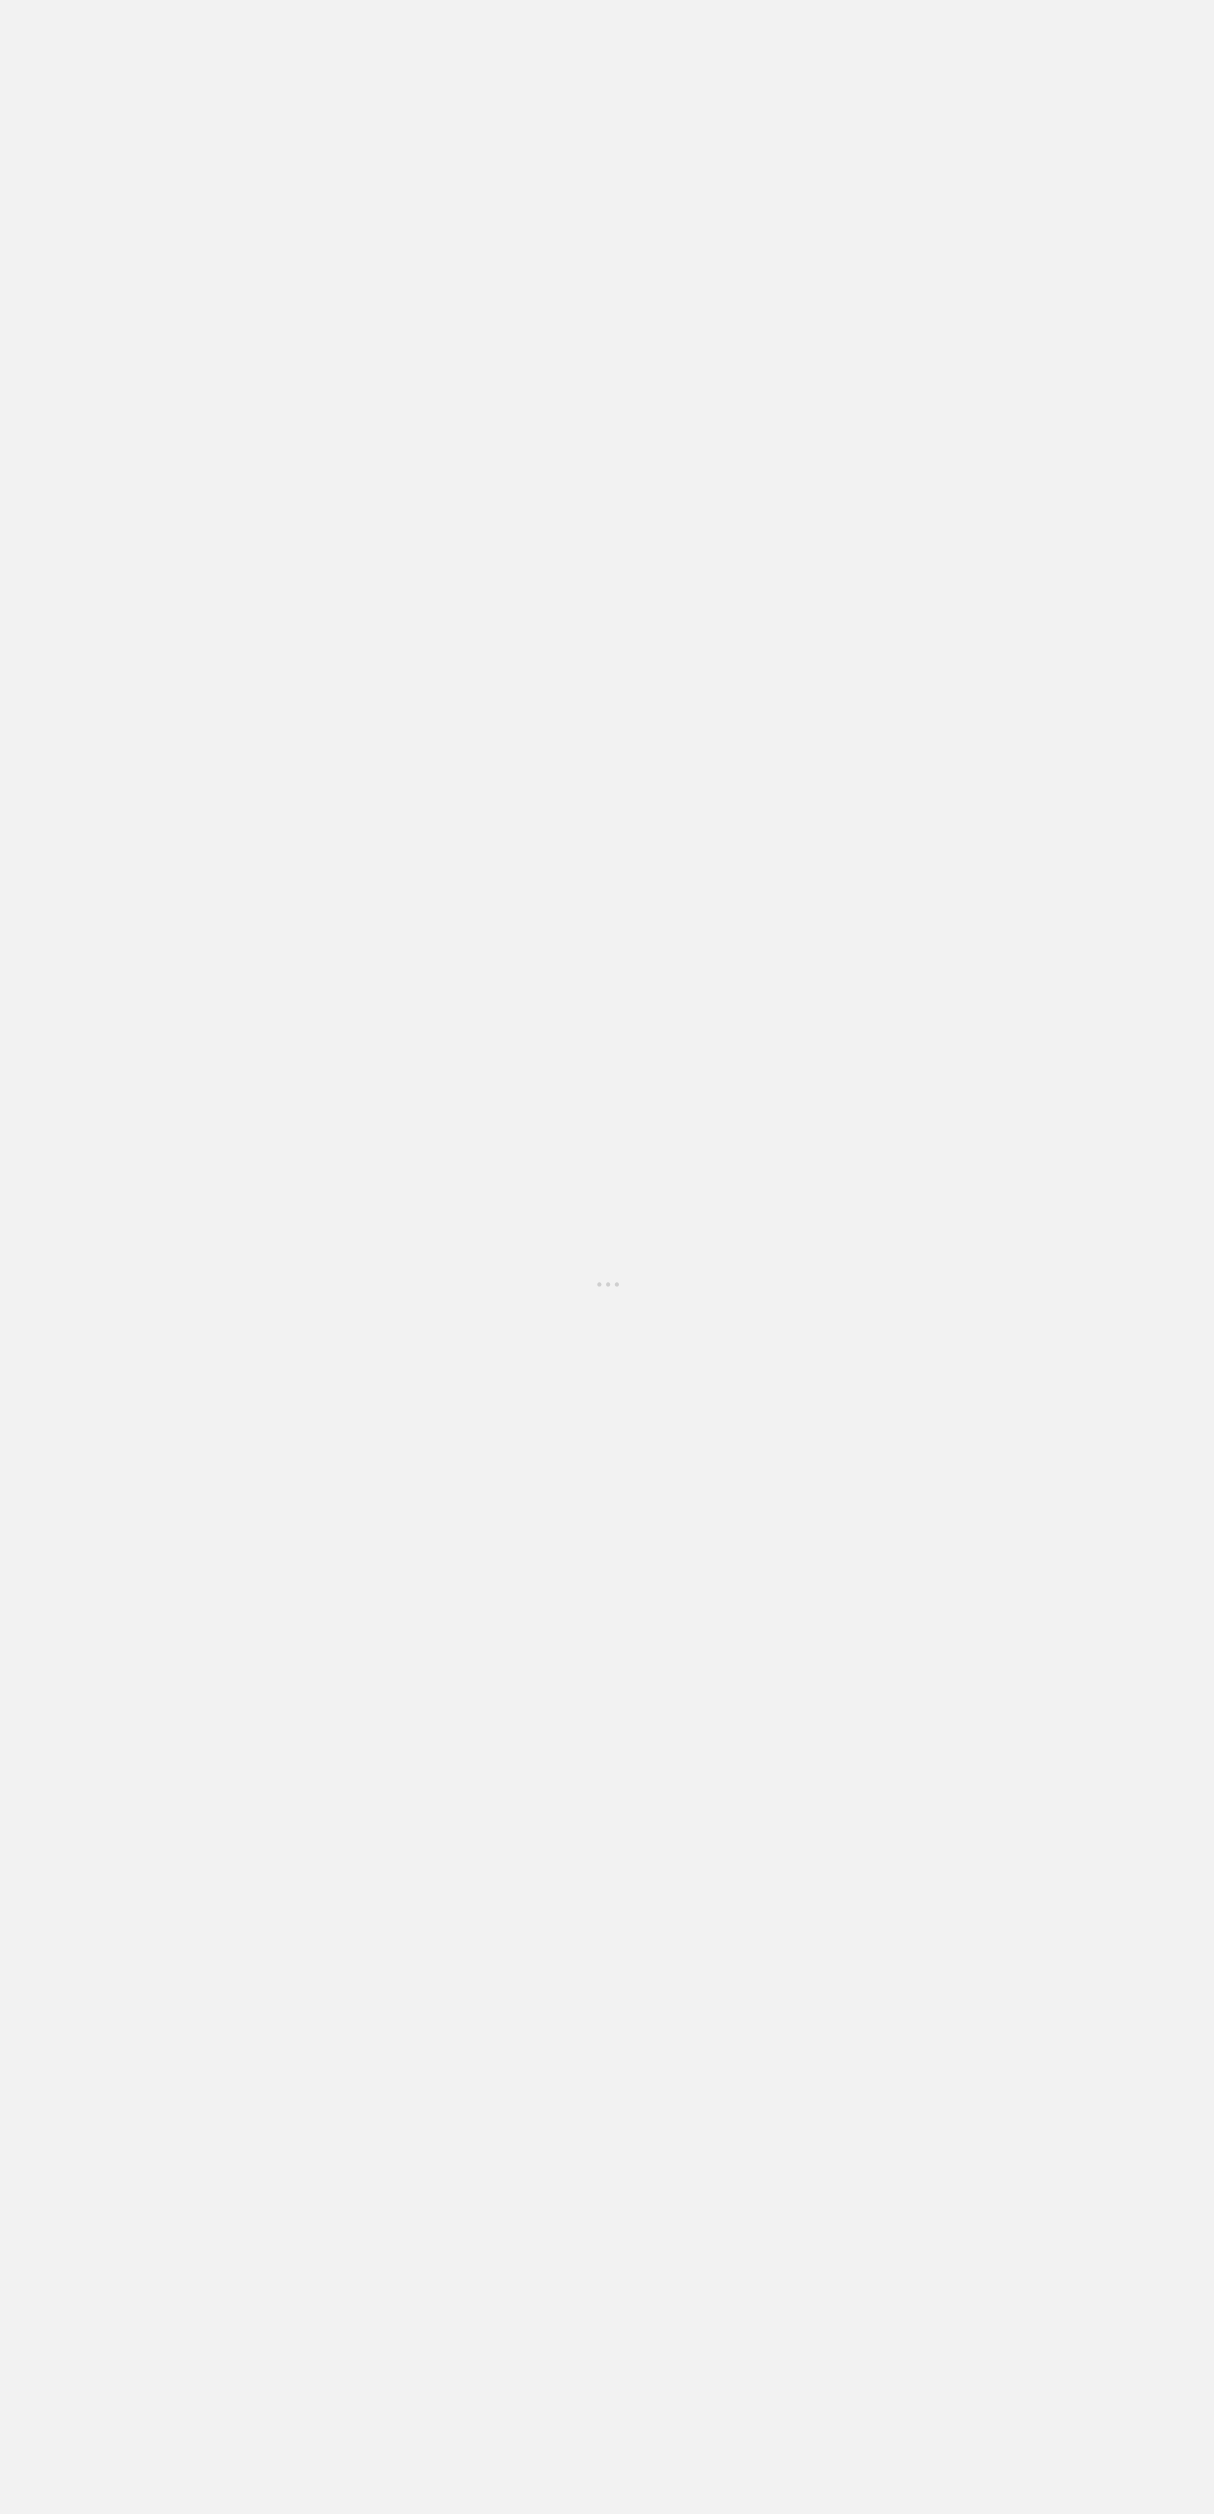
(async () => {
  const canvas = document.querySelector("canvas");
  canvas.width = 1214;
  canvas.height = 2514;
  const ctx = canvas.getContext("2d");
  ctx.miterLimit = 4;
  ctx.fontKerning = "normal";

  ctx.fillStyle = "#f2f2f2";
  ctx.fillRect(0, 0, 1214, 2514);
  ctx.font = "35px Liberation Serif";
  ctx.fillStyle = "#cfcfcf";
  ctx.fillText("...", 595, 1286);
})();
